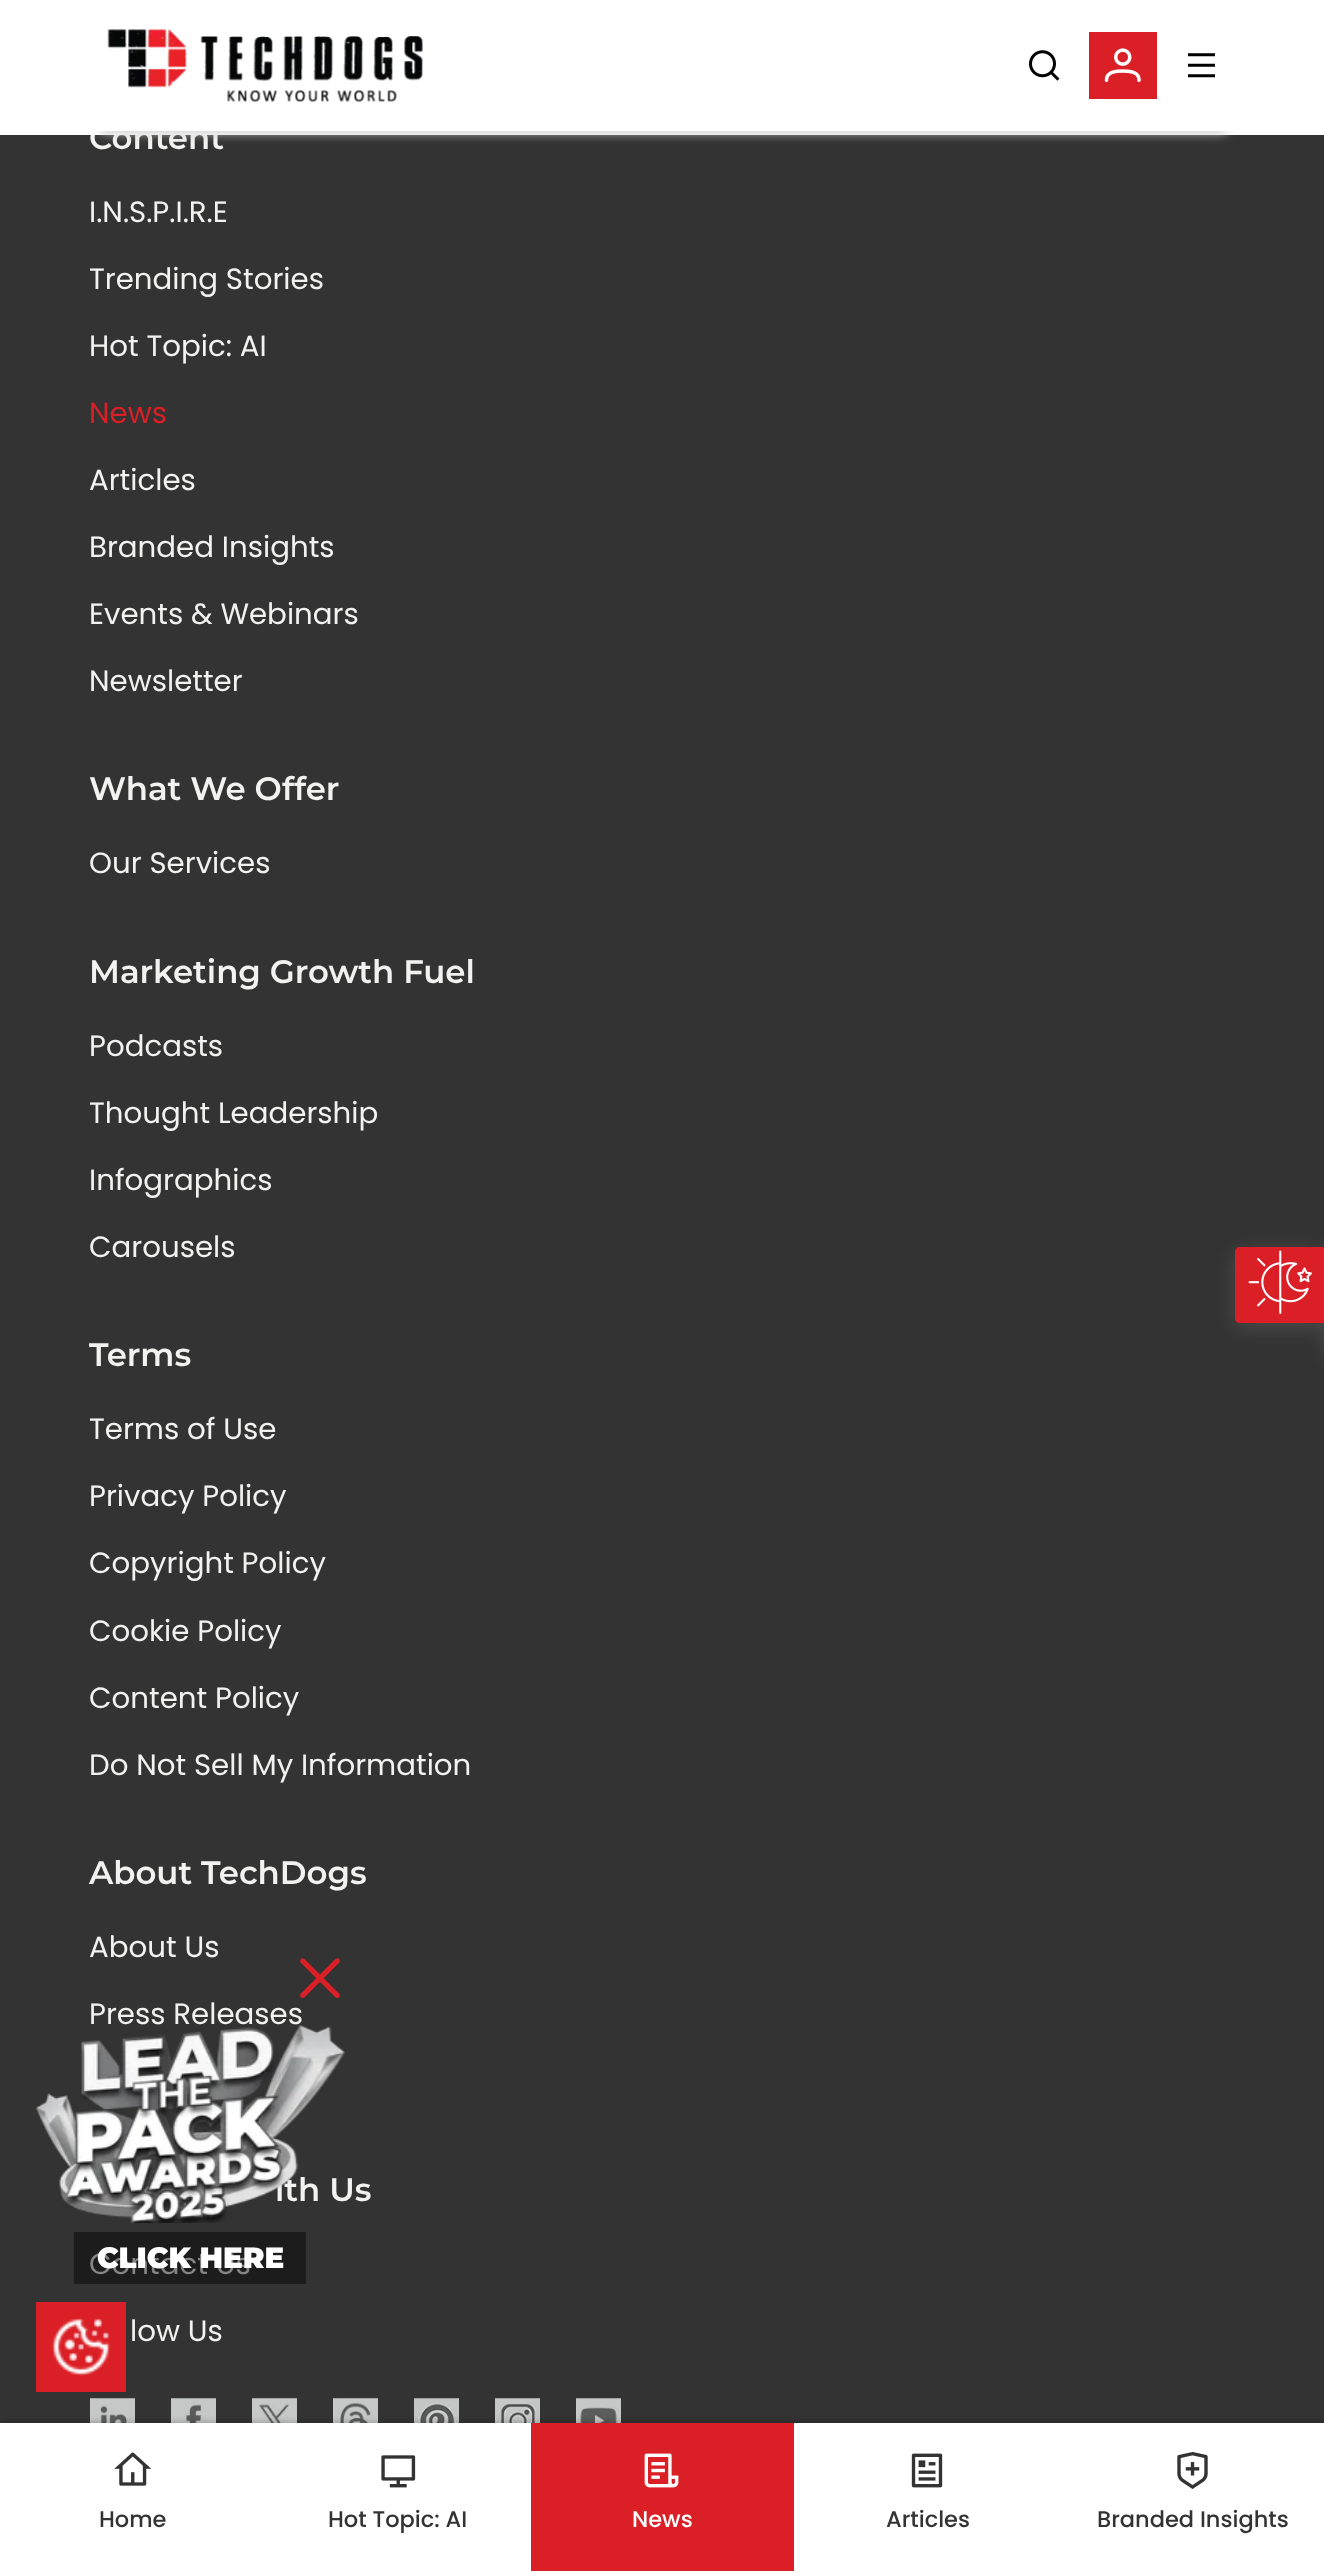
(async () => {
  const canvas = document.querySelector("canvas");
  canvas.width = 1324;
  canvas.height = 2571;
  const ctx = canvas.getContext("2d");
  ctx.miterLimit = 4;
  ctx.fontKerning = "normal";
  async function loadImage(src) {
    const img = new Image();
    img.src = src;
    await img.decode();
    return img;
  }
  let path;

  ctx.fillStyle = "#333333";
  ctx.fillRect(0, 0, 1324, 2571);
  ctx.fillStyle = "#1c1c1c";
  ctx.fillRect(74, 2232, 232, 52);
  ctx.drawImage(await loadImage("img/1.png"), 90, 2398, 45, 25);
  ctx.drawImage(await loadImage("img/2.png"), 171, 2398, 45, 25);
  ctx.drawImage(await loadImage("img/3.png"), 252, 2398, 45, 25);
  ctx.drawImage(await loadImage("img/4.png"), 333, 2398, 45, 25);
  ctx.drawImage(await loadImage("img/5.png"), 414, 2398, 45, 25);
  ctx.drawImage(await loadImage("img/6.png"), 495, 2398, 45, 25);
  ctx.drawImage(await loadImage("img/7.png"), 576, 2398, 45, 25);
  ctx.fillStyle = "rgba(0, 0, 0, 0.3)";
  ctx.filter = "blur(3.5px)";
  ctx.beginPath();
  ctx.rect(0, 2423, 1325, 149);
  ctx.fill();
  ctx.filter = "none";
  ctx.fillStyle = "#ffffff";
  ctx.fillRect(0, 2423, 1324, 148);
  ctx.drawImage(await loadImage("img/8.png"), 114, 2452, 38, 34);
  ctx.drawImage(await loadImage("img/9.png"), 381, 2455, 35, 33);
  ctx.fillStyle = "#da1f26";
  ctx.fillRect(531, 2423, 263, 148);
  ctx.drawImage(await loadImage("img/10.png"), 644, 2453, 35, 35);
  ctx.drawImage(await loadImage("img/11.png"), 911, 2453, 32, 35);
  ctx.drawImage(await loadImage("img/12.png"), 1177, 2452, 31, 37);
  ctx.fillStyle = "rgba(177, 177, 177, 0.2)";
  ctx.filter = "blur(10px)";
  ctx.beginPath();
  ctx.roundRect(1235, 1251, 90, 77, 5);
  ctx.fill();
  ctx.filter = "none";
  ctx.filter = "blur(10px)";
  ctx.beginPath();
  ctx.rect(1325, 1251, 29, 104);
  ctx.fill();
  ctx.filter = "none";
  ctx.fillStyle = "#da1f26";
  path = new Path2D("M1240 1247H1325V1323H1240C1237 1323 1235 1321 1235 1318V1252C1235 1249 1237 1247 1240 1247Z");
  ctx.fill(path);
  ctx.drawImage(await loadImage("img/13.png"), 1248, 1250, 64, 64);
  ctx.drawImage(await loadImage("img/18.png"), 300, 1958, 40, 40);
  ctx.fillRect(36, 2302, 90, 90);
  ctx.drawImage(await loadImage("img/20.png"), 51, 2317, 60, 59);
  ctx.font = "600 32.4px Montserrat";
  ctx.fillStyle = "#f2f2f1";
  ctx.fillText("Content", 89, 149);
  ctx.font = "29.25px Poppins";
  for (const [text, x, y] of [
    ["I.N.S.P.I.R.E", 89, 222],
    ["Trending Stories", 89, 289],
    ["Hot Topic: AI", 89, 356],
  ]) {
    ctx.fillText(text, x, y);
  }
  ctx.fillStyle = "#da1f26";
  ctx.fillText("News", 89, 423);
  ctx.fillStyle = "#f2f2f1";
  for (const [text, x, y] of [
    ["Articles", 89, 490],
    ["Branded Insights", 89, 557],
    ["Events & Webinars", 89, 624],
    ["Newsletter", 89, 691],
  ]) {
    ctx.fillText(text, x, y);
  }
  ctx.font = "600 32.4px Montserrat";
  ctx.fillText("What We Offer", 89, 800);
  ctx.font = "29.25px Poppins";
  ctx.fillText("Our Services", 89, 873);
  ctx.font = "600 32.4px Montserrat";
  ctx.fillText("Marketing Growth Fuel", 89, 983);
  ctx.font = "29.25px Poppins";
  for (const [text, x, y] of [
    ["Podcasts", 89, 1056],
    ["Thought Leadership", 89, 1123],
    ["Infographics", 89, 1190],
    ["Carousels", 89, 1257],
  ]) {
    ctx.fillText(text, x, y);
  }
  ctx.font = "600 32.4px Montserrat";
  ctx.fillText("Terms", 89, 1366);
  ctx.font = "29.25px Poppins";
  for (const [text, x, y] of [
    ["Terms of Use", 89, 1439],
    ["Privacy Policy", 89, 1506],
    ["Copyright Policy", 89, 1573],
    ["Cookie Policy", 89, 1641],
    ["Content Policy", 89, 1708],
    ["Do Not Sell My Information", 89, 1775],
  ]) {
    ctx.fillText(text, x, y);
  }
  ctx.font = "600 32.4px Montserrat";
  ctx.fillText("About TechDogs", 89, 1884);
  ctx.font = "29.25px Poppins";
  ctx.fillText("About Us", 89, 1957);
  ctx.fillText("Press Releases", 89, 2024);
  ctx.font = "600 32.4px Montserrat";
  ctx.fillText("ith Us", 275, 2201);
  ctx.font = "29.25px Poppins";
  ctx.fillStyle = "#858585";
  ctx.fillText("Contact Us", 89, 2274);
  ctx.fillStyle = "#f2f2f1";
  ctx.fillText("low Us", 130, 2341);
  ctx.font = "500 22.5px Poppins";
  ctx.fillStyle = "#333333";
  ctx.fillText("Home", 99, 2527);
  ctx.fillText("Hot Topic: AI", 328, 2527);
  ctx.fillStyle = "#ffffff";
  ctx.fillText("News", 632, 2527);
  ctx.fillStyle = "#333333";
  ctx.fillText("Articles", 886, 2527);
  ctx.fillText("Branded Insights", 1097, 2527);
  ctx.fillStyle = "#ffffff";
  ctx.fillRect(0, 0, 1324, 135);
  ctx.save();
  path = new Path2D("M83 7H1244V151H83ZM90 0H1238V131H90Z");
  ctx.clip(path, "evenodd");
  ctx.fillStyle = "#cccccc";
  ctx.filter = "blur(5.5px)";
  ctx.beginPath();
  ctx.rect(101, 25, 1125, 108);
  ctx.fill();
  ctx.filter = "none";
  ctx.restore();
  ctx.drawImage(await loadImage("img/14.png"), 107, 29, 316, 73);
  ctx.drawImage(await loadImage("img/15.png"), 1029, 50, 31, 31);
  ctx.fillStyle = "#da1f26";
  ctx.fillRect(1089, 32, 68, 67);
  ctx.drawImage(await loadImage("img/16.png"), 1104, 48, 37, 35);
  ctx.drawImage(await loadImage("img/17.png"), 1188, 53, 27, 25);
  ctx.drawImage(await loadImage("img/19.png"), 36, 2025, 309, 198);
  ctx.font = "900 29.25px Montserrat";
  ctx.fillStyle = "#ffffff";
  ctx.fillText("CLICK HERE", 97, 2268);
})();
